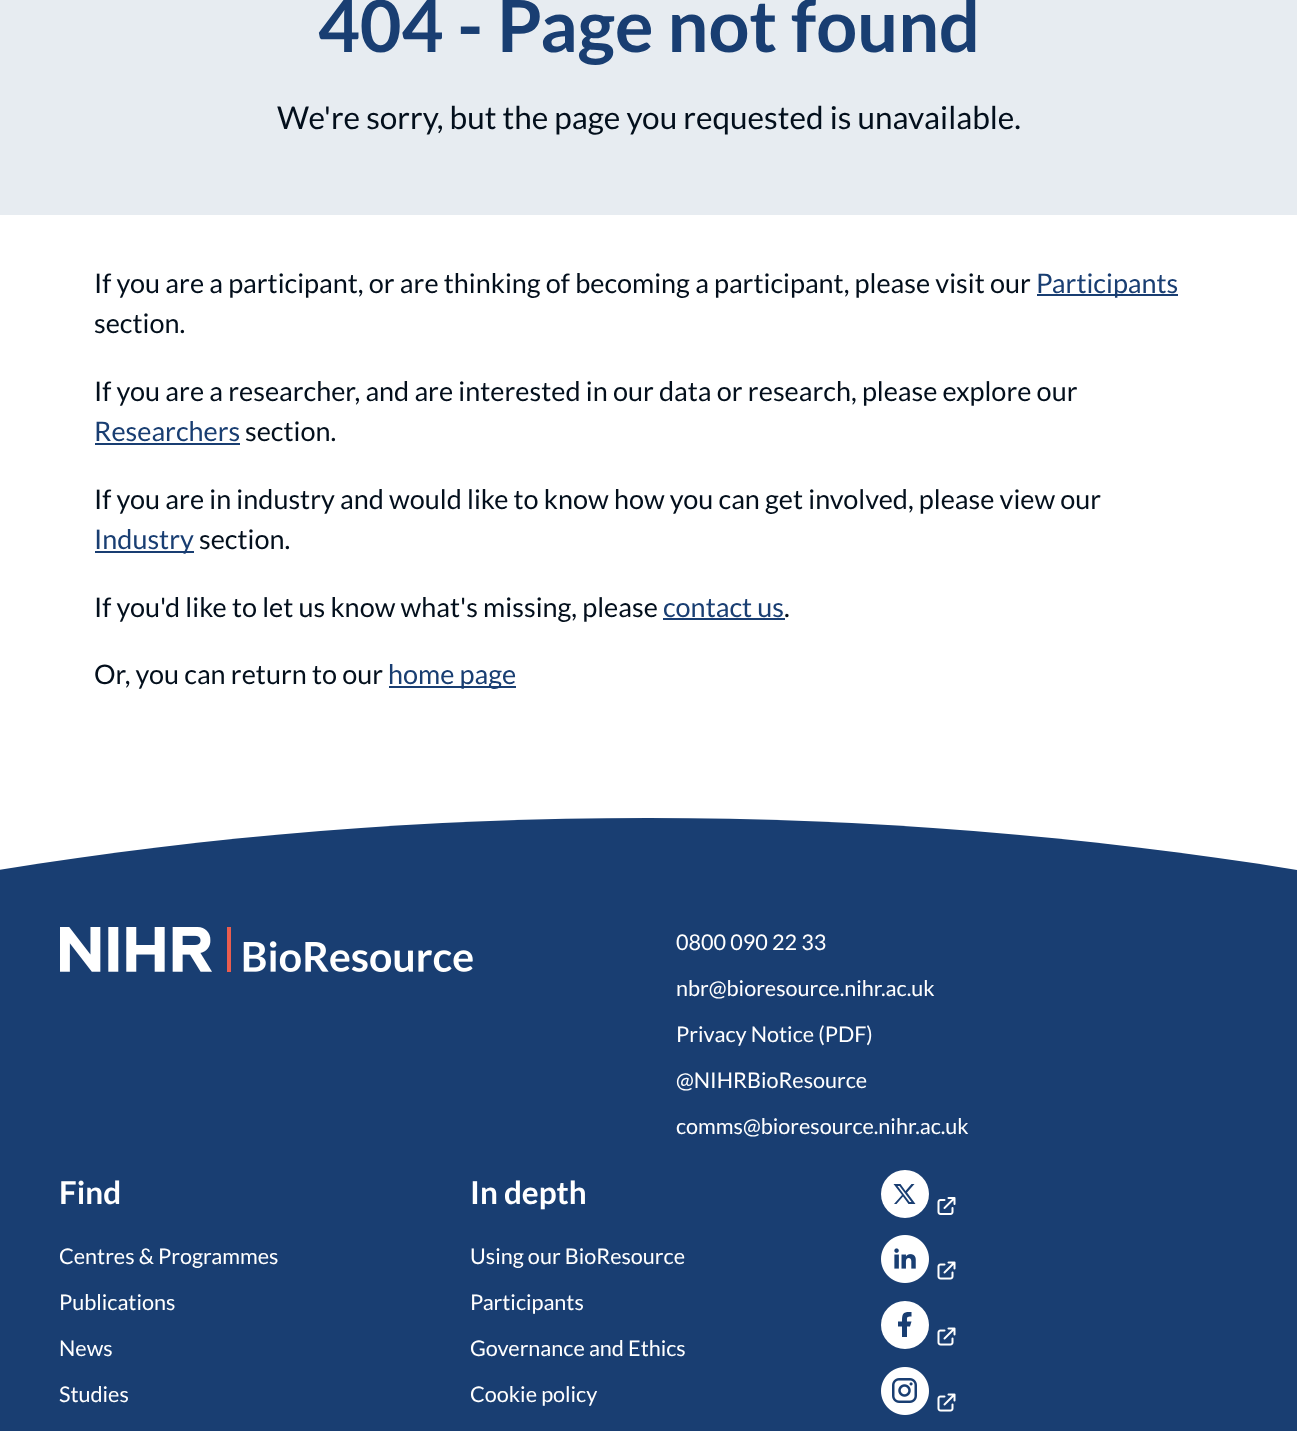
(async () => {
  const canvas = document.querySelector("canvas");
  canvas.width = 1297;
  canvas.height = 1431;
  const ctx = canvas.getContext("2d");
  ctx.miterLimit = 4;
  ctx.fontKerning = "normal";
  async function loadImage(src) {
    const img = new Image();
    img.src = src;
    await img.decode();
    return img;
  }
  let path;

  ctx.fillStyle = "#ffffff";
  ctx.fillRect(0, 0, 1297, 1431);
  for (const [x, y, w, h, color] of [
    [0, 0, 1297, 215, "#e7ecf1"],
    [1037, 294, 141, 2, "#193e72"],
    [95, 443, 145, 2, "#193e72"],
    [95, 551, 99, 2, "#193e72"],
    [663, 618, 122, 2, "#193e72"],
    [389, 686, 127, 2, "#193e72"],
    [0, 906, 1297, 525, "#193e72"],
  ]) {
    ctx.fillStyle = color;
    ctx.fillRect(x, y, w, h);
  }
  path = new Path2D("M648 818C870 818 1091 836 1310 872V906H-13V872C202 836 423 818 648 818Z");
  ctx.fill(path, "evenodd");
  ctx.drawImage(await loadImage("img/1.png"), 60, 927, 413, 45);
  ctx.fillStyle = "#ffffff";
  ctx.beginPath();
  ctx.arc(905, 1194, 24, 0, Math.PI * 2);
  ctx.fill();
  ctx.fillStyle = "#193e72";
  path = new Path2D("M900.5 1184H893.5L902 1195L894 1204H896.5L903 1196.5L908.5 1204H915.5L907 1192.5L914.5 1184H911.5L905.5 1191ZM909.5 1202L897.5 1186H899.5L911.5 1202Z");
  ctx.fill(path);
  ctx.drawImage(await loadImage("img/2.png"), 937, 1197, 19, 18);
  ctx.drawImage(await loadImage("img/3.png"), 881, 1235, 48, 48);
  ctx.drawImage(await loadImage("img/4.png"), 937, 1261, 19, 19);
  ctx.fillStyle = "#ffffff";
  ctx.beginPath();
  ctx.arc(905, 1325, 24, 0, Math.PI * 2);
  ctx.fill();
  ctx.fillStyle = "#193e72";
  path = new Path2D("M907 1326.5H910L911.5 1321.5H907C907 1317 906.5 1316.5 911.5 1316.5V1312C903 1311.5 902 1313.5 902 1321.5H898V1326.5H902V1337H907Z");
  ctx.fill(path);
  ctx.drawImage(await loadImage("img/4.png"), 937, 1327, 19, 19);
  ctx.drawImage(await loadImage("img/5.png"), 881, 1367, 48, 48);
  ctx.drawImage(await loadImage("img/4.png"), 937, 1393, 19, 19);
  ctx.font = "bold 72px Lato";
  ctx.fillText("404 - Page not found", 318, 52);
  ctx.font = "31.5px Lato";
  ctx.fillStyle = "#030f1c";
  ctx.fillText("We're sorry, but the page you requested is unavailable.", 277, 129);
  ctx.font = "27px Lato";
  ctx.fillText("If you are a participant, or are thinking of becoming a participant, please visit our", 94, 293);
  ctx.fillStyle = "#193e72";
  ctx.fillText("Participants", 1036, 293);
  ctx.fillStyle = "#030f1c";
  ctx.fillText("section.", 94, 333);
  ctx.fillText("If you are a researcher, and are interested in our data or research, please explore our", 94, 401);
  ctx.fillStyle = "#193e72";
  ctx.fillText("Researchers", 94, 441);
  ctx.fillStyle = "#030f1c";
  ctx.fillText("section.", 245, 441);
  ctx.fillText("If you are in industry and would like to know how you can get involved, please view our", 94, 509);
  ctx.fillStyle = "#193e72";
  ctx.fillText("Industry", 94, 549);
  ctx.fillStyle = "#030f1c";
  ctx.fillText("section.", 199, 549);
  ctx.fillText("If you'd like to let us know what's missing, please", 94, 617);
  ctx.fillStyle = "#193e72";
  ctx.fillText("contact us", 663, 617);
  ctx.fillStyle = "#030f1c";
  ctx.fillText(".", 784, 617);
  ctx.fillText("Or, you can return to our", 94, 684);
  ctx.fillStyle = "#193e72";
  ctx.fillText("home page", 388, 684);
  ctx.font = "21.6px Lato";
  ctx.fillStyle = "#ffffff";
  for (const [text, x, y] of [
    ["0800 090 22 33", 676, 950],
    ["nbr@bioresource.nihr.ac.uk", 676, 996],
    ["Privacy Notice (PDF)", 676, 1042],
    ["@NIHRBioResource", 676, 1088],
    ["comms@bioresource.nihr.ac.uk", 676, 1134],
  ]) {
    ctx.fillText(text, x, y);
  }
  ctx.font = "bold 31.5px Lato";
  ctx.fillText("Find", 59, 1204);
  ctx.font = "21.6px Lato";
  for (const [text, x, y] of [
    ["Centres & Programmes", 59, 1264],
    ["Publications", 59, 1310],
    ["News", 59, 1356],
    ["Studies", 59, 1402],
  ]) {
    ctx.fillText(text, x, y);
  }
  ctx.font = "bold 31.5px Lato";
  ctx.fillText("In depth", 470, 1204);
  ctx.font = "21.6px Lato";
  for (const [text, x, y] of [
    ["Using our BioResource", 470, 1264],
    ["Participants", 470, 1310],
    ["Governance and Ethics", 470, 1356],
    ["Cookie policy", 470, 1402],
  ]) {
    ctx.fillText(text, x, y);
  }
})();
